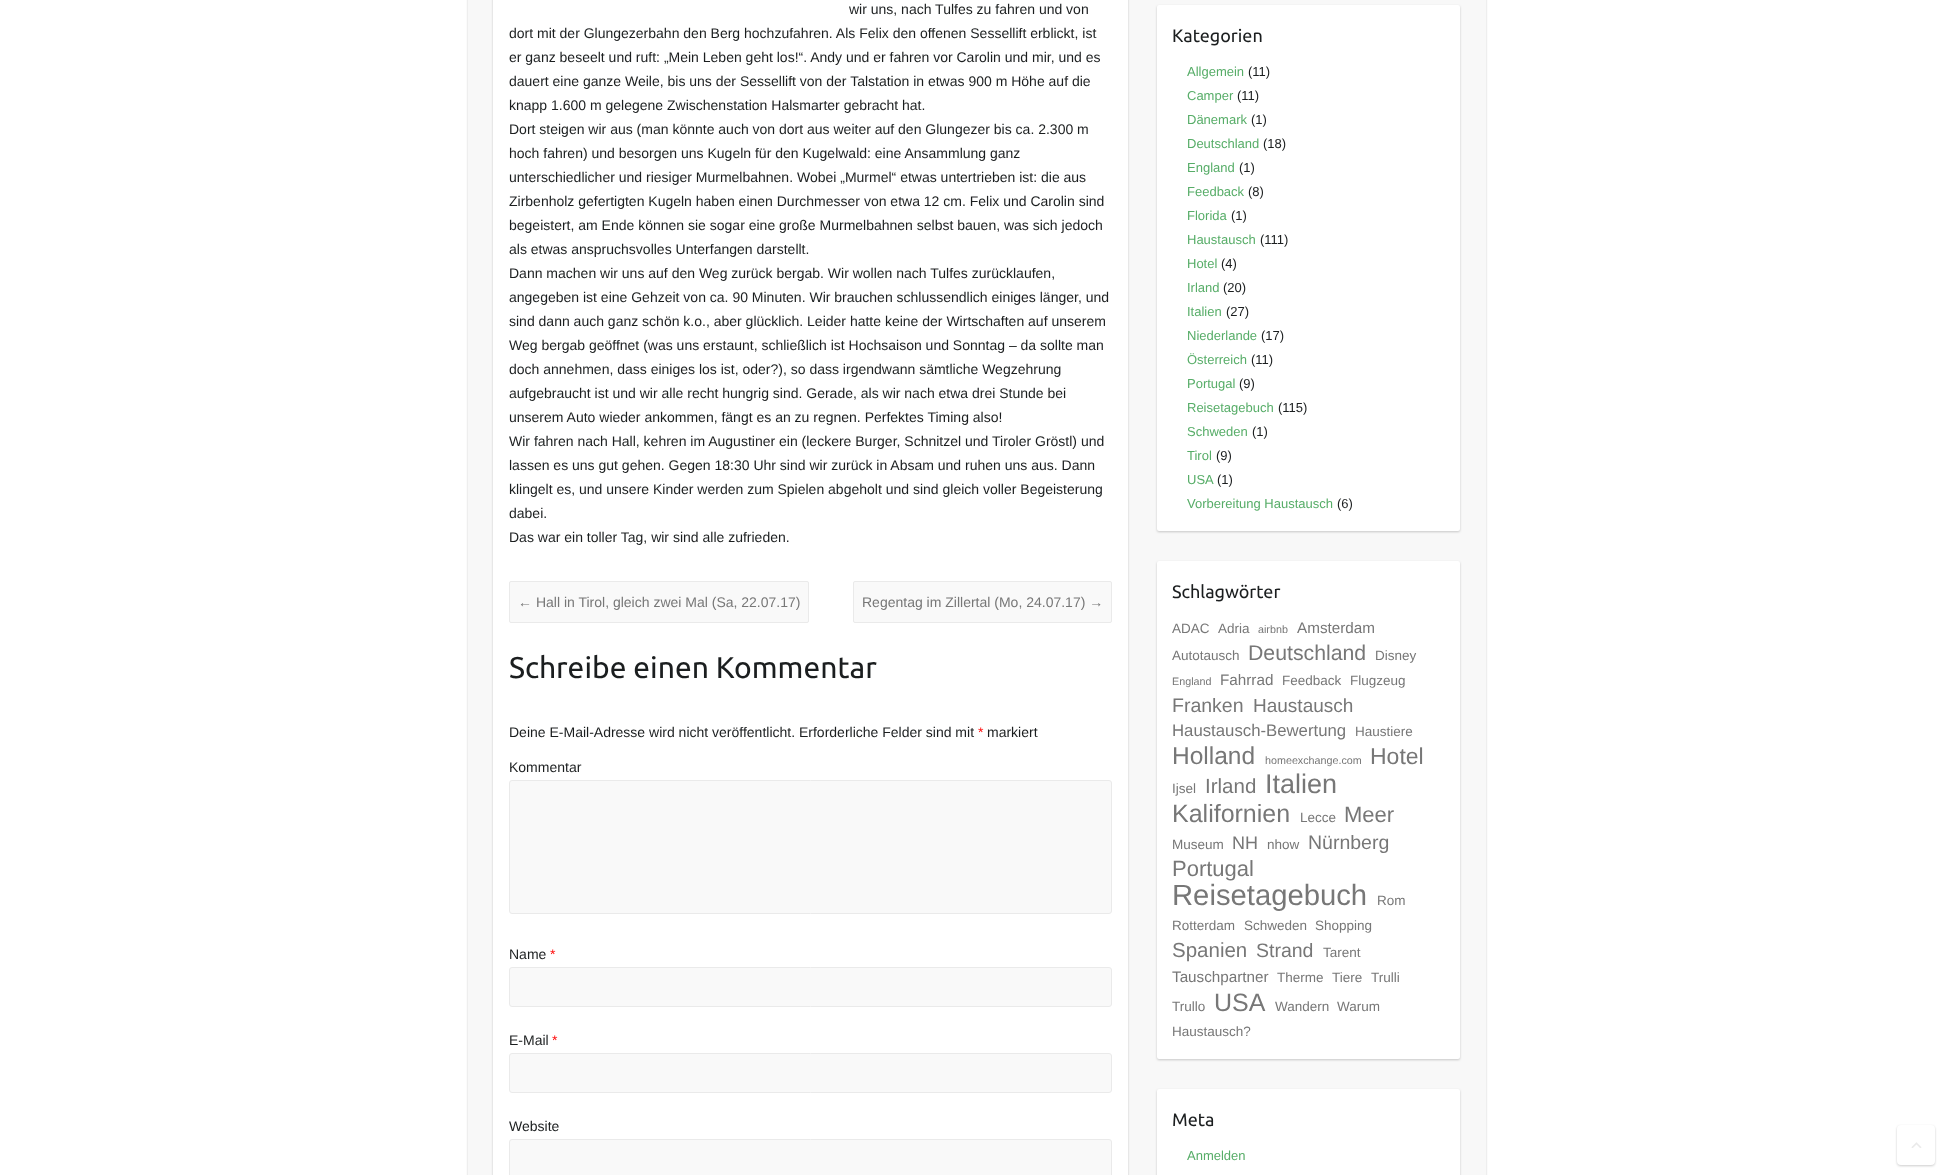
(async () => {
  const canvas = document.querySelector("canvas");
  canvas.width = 1953;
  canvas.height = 1175;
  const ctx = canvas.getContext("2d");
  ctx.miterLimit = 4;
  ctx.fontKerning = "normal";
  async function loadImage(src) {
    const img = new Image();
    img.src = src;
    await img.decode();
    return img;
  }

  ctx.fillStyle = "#ffffff";
  ctx.fillRect(0, 0, 1953, 1175);
  ctx.fillStyle = "rgba(0, 0, 0, 0.2)";
  ctx.filter = "blur(1px)";
  ctx.beginPath();
  ctx.roundRect(468, -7, 1018, 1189, 4);
  ctx.fill();
  ctx.filter = "none";
  ctx.fillStyle = "#f8f8f8";
  ctx.fillRect(468, 0, 1018, 1175);
  ctx.fillStyle = "rgba(0, 0, 0, 0.2)";
  ctx.filter = "blur(1px)";
  ctx.beginPath();
  ctx.rect(493, -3, 635, 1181);
  ctx.fill();
  ctx.filter = "none";
  ctx.fillStyle = "#ffffff";
  ctx.fillRect(493, 0, 635, 1175);
  ctx.fillStyle = "#f9f9f9";
  ctx.beginPath();
  ctx.roundRect(509.5, 581.5, 299, 41, 1.5);
  ctx.fill();
  ctx.strokeStyle = "#eaeaea";
  ctx.stroke();
  ctx.beginPath();
  ctx.roundRect(853.5, 581.5, 258, 41, 1.5);
  ctx.fill();
  ctx.stroke();
  ctx.beginPath();
  ctx.roundRect(509.5, 780.5, 602, 133, 2.5);
  ctx.fill();
  ctx.stroke();
  ctx.beginPath();
  ctx.roundRect(509.5, 967.5, 602, 39, 2.5);
  ctx.fill();
  ctx.stroke();
  ctx.beginPath();
  ctx.roundRect(509.5, 1053.5, 602, 39, 2.5);
  ctx.fill();
  ctx.stroke();
  ctx.beginPath();
  ctx.roundRect(509.5, 1139.5, 602, 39, 2.5);
  ctx.fill();
  ctx.stroke();
  ctx.fillStyle = "rgba(0, 0, 0, 0.2)";
  ctx.filter = "blur(1px)";
  ctx.beginPath();
  ctx.roundRect(1157, 6, 303, 526, 2);
  ctx.fill();
  ctx.filter = "none";
  ctx.fillStyle = "#ffffff";
  ctx.beginPath();
  ctx.roundRect(1157, 5, 303, 526, 2);
  ctx.fill();
  ctx.fillStyle = "rgba(0, 0, 0, 0.2)";
  ctx.filter = "blur(1px)";
  ctx.beginPath();
  ctx.roundRect(1157, 562, 303, 498, 2);
  ctx.fill();
  ctx.filter = "none";
  ctx.fillStyle = "#ffffff";
  ctx.beginPath();
  ctx.roundRect(1157, 561, 303, 498, 2);
  ctx.fill();
  ctx.fillStyle = "rgba(0, 0, 0, 0.2)";
  ctx.filter = "blur(1px)";
  ctx.beginPath();
  ctx.roundRect(1157, 1090, 303, 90, 2);
  ctx.fill();
  ctx.filter = "none";
  ctx.fillStyle = "#ffffff";
  ctx.beginPath();
  ctx.roundRect(1157, 1089, 303, 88, 2);
  ctx.fill();
  ctx.fillStyle = "rgba(0, 0, 0, 0.2)";
  ctx.filter = "blur(1px)";
  ctx.beginPath();
  ctx.roundRect(1897, 1126, 38, 40, 4);
  ctx.fill();
  ctx.filter = "none";
  ctx.fillStyle = "#ffffff";
  ctx.beginPath();
  ctx.roundRect(1897, 1125, 38, 40, 4);
  ctx.fill();
  ctx.drawImage(await loadImage("img/1.png"), 1911, 1142, 11, 6);
  ctx.font = "14px Liberation Sans";
  ctx.fillStyle = "#1b1e1f";
  for (const [text, x, y] of [
    ["wir uns, nach Tulfes zu fahren und von", 849, 14],
    ["dort mit der Glungezerbahn den Berg hochzufahren. Als Felix den offenen Sessellift erblickt, ist", 509, 38],
    ["er ganz beseelt und ruft: „Mein Leben geht los!“. Andy und er fahren vor Carolin und mir, und es", 509, 62],
    ["dauert eine ganze Weile, bis uns der Sessellift von der Talstation in etwas 900 m Höhe auf die", 509, 86],
    ["knapp 1.600 m gelegene Zwischenstation Halsmarter gebracht hat.", 509, 110],
    ["Dort steigen wir aus (man könnte auch von dort aus weiter auf den Glungezer bis ca. 2.300 m", 509, 134],
    ["hoch fahren) und besorgen uns Kugeln für den Kugelwald: eine Ansammlung ganz", 509, 158],
    ["unterschiedlicher und riesiger Murmelbahnen. Wobei „Murmel“ etwas untertrieben ist: die aus", 509, 182],
    ["Zirbenholz gefertigten Kugeln haben einen Durchmesser von etwa 12 cm. Felix und Carolin sind", 509, 206],
    ["begeistert, am Ende können sie sogar eine große Murmelbahnen selbst bauen, was sich jedoch", 509, 230],
    ["als etwas anspruchsvolles Unterfangen darstellt.", 509, 254],
    ["Dann machen wir uns auf den Weg zurück bergab. Wir wollen nach Tulfes zurücklaufen,", 509, 278],
    ["angegeben ist eine Gehzeit von ca. 90 Minuten. Wir brauchen schlussendlich einiges länger, und", 509, 302],
    ["sind dann auch ganz schön k.o., aber glücklich. Leider hatte keine der Wirtschaften auf unserem", 509, 326],
    ["Weg bergab geöffnet (was uns erstaunt, schließlich ist Hochsaison und Sonntag – da sollte man", 509, 350],
    ["doch annehmen, dass einiges los ist, oder?), so dass irgendwann sämtliche Wegzehrung", 509, 374],
    ["aufgebraucht ist und wir alle recht hungrig sind. Gerade, als wir nach etwa drei Stunde bei", 509, 398],
    ["unserem Auto wieder ankommen, fängt es an zu regnen. Perfektes Timing also!", 509, 422],
    ["Wir fahren nach Hall, kehren im Augustiner ein (leckere Burger, Schnitzel und Tiroler Gröstl) und", 509, 446],
    ["lassen es uns gut gehen. Gegen 18:30 Uhr sind wir zurück in Absam und ruhen uns aus. Dann", 509, 470],
    ["klingelt es, und unsere Kinder werden zum Spielen abgeholt und sind gleich voller Begeisterung", 509, 494],
    ["dabei.", 509, 518],
    ["Das war ein toller Tag, wir sind alle zufrieden.", 509, 542],
  ]) {
    ctx.fillText(text, x, y);
  }
  ctx.fillStyle = "#777777";
  ctx.fillText("← Hall in Tirol, gleich zwei Mal (Sa, 22.07.17)", 518, 607);
  ctx.fillText("Regentag im Zillertal (Mo, 24.07.17) →", 862, 607);
  ctx.font = "30px Ubuntu";
  ctx.fillStyle = "#1b1e1f";
  ctx.fillText("Schreibe einen Kommentar", 509, 678);
  ctx.font = "14px Liberation Sans";
  ctx.fillText("Deine E-Mail-Adresse wird nicht veröffentlicht. Erforderliche Felder sind mit", 509, 737);
  ctx.fillStyle = "#ff0000";
  ctx.fillText("*", 978, 737);
  ctx.fillStyle = "#1b1e1f";
  for (const [text, x, y] of [
    ["markiert", 987, 737],
    ["Kommentar", 509, 772],
    ["Name", 509, 959],
  ]) {
    ctx.fillText(text, x, y);
  }
  ctx.fillStyle = "#ff0000";
  ctx.fillText("*", 550, 959);
  ctx.fillStyle = "#1b1e1f";
  ctx.fillText("E-Mail", 509, 1045);
  ctx.fillStyle = "#ff0000";
  ctx.fillText("*", 552, 1045);
  ctx.fillStyle = "#1b1e1f";
  ctx.fillText("Website", 509, 1131);
  ctx.font = "18px Ubuntu";
  ctx.fillText("Kategorien", 1172, 42);
  ctx.font = "13px Liberation Sans";
  ctx.fillStyle = "#57ad68";
  ctx.fillText("Allgemein", 1187, 76);
  ctx.fillStyle = "#1b1e1f";
  ctx.fillText("(11)", 1248, 76);
  ctx.fillStyle = "#57ad68";
  ctx.fillText("Camper", 1187, 100);
  ctx.fillStyle = "#1b1e1f";
  ctx.fillText("(11)", 1237, 100);
  ctx.fillStyle = "#57ad68";
  ctx.fillText("Dänemark", 1187, 124);
  ctx.fillStyle = "#1b1e1f";
  ctx.fillText("(1)", 1251, 124);
  ctx.fillStyle = "#57ad68";
  ctx.fillText("Deutschland", 1187, 148);
  ctx.fillStyle = "#1b1e1f";
  ctx.fillText("(18)", 1263, 148);
  ctx.fillStyle = "#57ad68";
  ctx.fillText("England", 1187, 172);
  ctx.fillStyle = "#1b1e1f";
  ctx.fillText("(1)", 1239, 172);
  ctx.fillStyle = "#57ad68";
  ctx.fillText("Feedback", 1187, 196);
  ctx.fillStyle = "#1b1e1f";
  ctx.fillText("(8)", 1248, 196);
  ctx.fillStyle = "#57ad68";
  ctx.fillText("Florida", 1187, 220);
  ctx.fillStyle = "#1b1e1f";
  ctx.fillText("(1)", 1231, 220);
  ctx.fillStyle = "#57ad68";
  ctx.fillText("Haustausch", 1187, 244);
  ctx.fillStyle = "#1b1e1f";
  ctx.fillText("(111)", 1260, 244);
  ctx.fillStyle = "#57ad68";
  ctx.fillText("Hotel", 1187, 268);
  ctx.fillStyle = "#1b1e1f";
  ctx.fillText("(4)", 1221, 268);
  ctx.fillStyle = "#57ad68";
  ctx.fillText("Irland", 1187, 292);
  ctx.fillStyle = "#1b1e1f";
  ctx.fillText("(20)", 1223, 292);
  ctx.fillStyle = "#57ad68";
  ctx.fillText("Italien", 1187, 316);
  ctx.fillStyle = "#1b1e1f";
  ctx.fillText("(27)", 1226, 316);
  ctx.fillStyle = "#57ad68";
  ctx.fillText("Niederlande", 1187, 340);
  ctx.fillStyle = "#1b1e1f";
  ctx.fillText("(17)", 1261, 340);
  ctx.fillStyle = "#57ad68";
  ctx.fillText("Österreich", 1187, 364);
  ctx.fillStyle = "#1b1e1f";
  ctx.fillText("(11)", 1251, 364);
  ctx.fillStyle = "#57ad68";
  ctx.fillText("Portugal", 1187, 388);
  ctx.fillStyle = "#1b1e1f";
  ctx.fillText("(9)", 1239, 388);
  ctx.fillStyle = "#57ad68";
  ctx.fillText("Reisetagebuch", 1187, 412);
  ctx.fillStyle = "#1b1e1f";
  ctx.fillText("(115)", 1278, 412);
  ctx.fillStyle = "#57ad68";
  ctx.fillText("Schweden", 1187, 436);
  ctx.fillStyle = "#1b1e1f";
  ctx.fillText("(1)", 1252, 436);
  ctx.fillStyle = "#57ad68";
  ctx.fillText("Tirol", 1187, 460);
  ctx.fillStyle = "#1b1e1f";
  ctx.fillText("(9)", 1216, 460);
  ctx.fillStyle = "#57ad68";
  ctx.fillText("USA", 1187, 484);
  ctx.fillStyle = "#1b1e1f";
  ctx.fillText("(1)", 1217, 484);
  ctx.fillStyle = "#57ad68";
  ctx.fillText("Vorbereitung Haustausch", 1187, 508);
  ctx.fillStyle = "#1b1e1f";
  ctx.fillText("(6)", 1337, 508);
  ctx.font = "18px Ubuntu";
  ctx.fillText("Schlagwörter", 1172, 598);
  ctx.font = "13.5px Liberation Sans";
  ctx.fillStyle = "#777777";
  ctx.fillText("ADAC", 1172, 633);
  ctx.fillText("Adria", 1218, 633);
  ctx.font = "10.75px Liberation Sans";
  ctx.fillText("airbnb", 1258, 633);
  ctx.font = "15.25px Liberation Sans";
  ctx.fillText("Amsterdam", 1297, 633);
  ctx.font = "13.5px Liberation Sans";
  ctx.fillText("Autotausch", 1172, 660);
  ctx.font = "21.25px Liberation Sans";
  ctx.fillText("Deutschland", 1248, 660);
  ctx.font = "13.5px Liberation Sans";
  ctx.fillText("Disney", 1375, 660);
  ctx.font = "10.75px Liberation Sans";
  ctx.fillText("England", 1172, 685);
  ctx.font = "15.25px Liberation Sans";
  ctx.fillText("Fahrrad", 1220, 685);
  ctx.font = "13.5px Liberation Sans";
  ctx.fillText("Feedback", 1282, 685);
  ctx.fillText("Flugzeug", 1350, 685);
  ctx.font = "19.5px Liberation Sans";
  ctx.fillText("Franken", 1172, 712);
  ctx.font = "19px Liberation Sans";
  ctx.fillText("Haustausch", 1253, 712);
  ctx.font = "16.75px Liberation Sans";
  ctx.fillText("Haustausch-Bewertung", 1172, 736);
  ctx.font = "13.5px Liberation Sans";
  ctx.fillText("Haustiere", 1355, 736);
  ctx.font = "24.5px Liberation Sans";
  ctx.fillText("Holland", 1172, 764);
  ctx.font = "10.75px Liberation Sans";
  ctx.fillText("homeexchange.com", 1265, 764);
  ctx.font = "23px Liberation Sans";
  ctx.fillText("Hotel", 1370, 764);
  ctx.font = "13.5px Liberation Sans";
  ctx.fillText("Ijsel", 1172, 793);
  ctx.font = "20.5px Liberation Sans";
  ctx.fillText("Irland", 1205, 793);
  ctx.font = "27px Liberation Sans";
  ctx.fillText("Italien", 1265, 793);
  ctx.font = "25px Liberation Sans";
  ctx.fillText("Kalifornien", 1172, 822);
  ctx.font = "13.5px Liberation Sans";
  ctx.fillText("Lecce", 1300, 822);
  ctx.font = "22px Liberation Sans";
  ctx.fillText("Meer", 1344, 822);
  ctx.font = "13.5px Liberation Sans";
  ctx.fillText("Museum", 1172, 849);
  ctx.font = "18px Liberation Sans";
  ctx.fillText("NH", 1232, 849);
  ctx.font = "13.5px Liberation Sans";
  ctx.fillText("nhow", 1267, 849);
  ctx.font = "19.5px Liberation Sans";
  ctx.fillText("Nürnberg", 1308, 849);
  ctx.font = "22px Liberation Sans";
  ctx.fillText("Portugal", 1172, 876);
  ctx.font = "29.25px Liberation Sans";
  ctx.fillText("Reisetagebuch", 1172, 905);
  ctx.font = "13.5px Liberation Sans";
  for (const [text, x, y] of [
    ["Rom", 1377, 905],
    ["Rotterdam", 1172, 930],
    ["Schweden", 1244, 930],
    ["Shopping", 1315, 930],
  ]) {
    ctx.fillText(text, x, y);
  }
  ctx.font = "20.5px Liberation Sans";
  ctx.fillText("Spanien", 1172, 957);
  ctx.font = "19.5px Liberation Sans";
  ctx.fillText("Strand", 1256, 957);
  ctx.font = "13.5px Liberation Sans";
  ctx.fillText("Tarent", 1323, 957);
  ctx.font = "15.25px Liberation Sans";
  ctx.fillText("Tauschpartner", 1172, 982);
  ctx.font = "13.5px Liberation Sans";
  for (const [text, x, y] of [
    ["Therme", 1277, 982],
    ["Tiere", 1332, 982],
    ["Trulli", 1371, 982],
    ["Trullo", 1172, 1011],
  ]) {
    ctx.fillText(text, x, y);
  }
  ctx.font = "25px Liberation Sans";
  ctx.fillText("USA", 1214, 1011);
  ctx.font = "13.5px Liberation Sans";
  for (const [text, x, y] of [
    ["Wandern", 1275, 1011],
    ["Warum", 1337, 1011],
    ["Haustausch?", 1172, 1036],
  ]) {
    ctx.fillText(text, x, y);
  }
  ctx.font = "18px Ubuntu";
  ctx.fillStyle = "#1b1e1f";
  ctx.fillText("Meta", 1172, 1126);
  ctx.font = "13px Liberation Sans";
  ctx.fillStyle = "#57ad68";
  ctx.fillText("Anmelden", 1187, 1160);
})();
